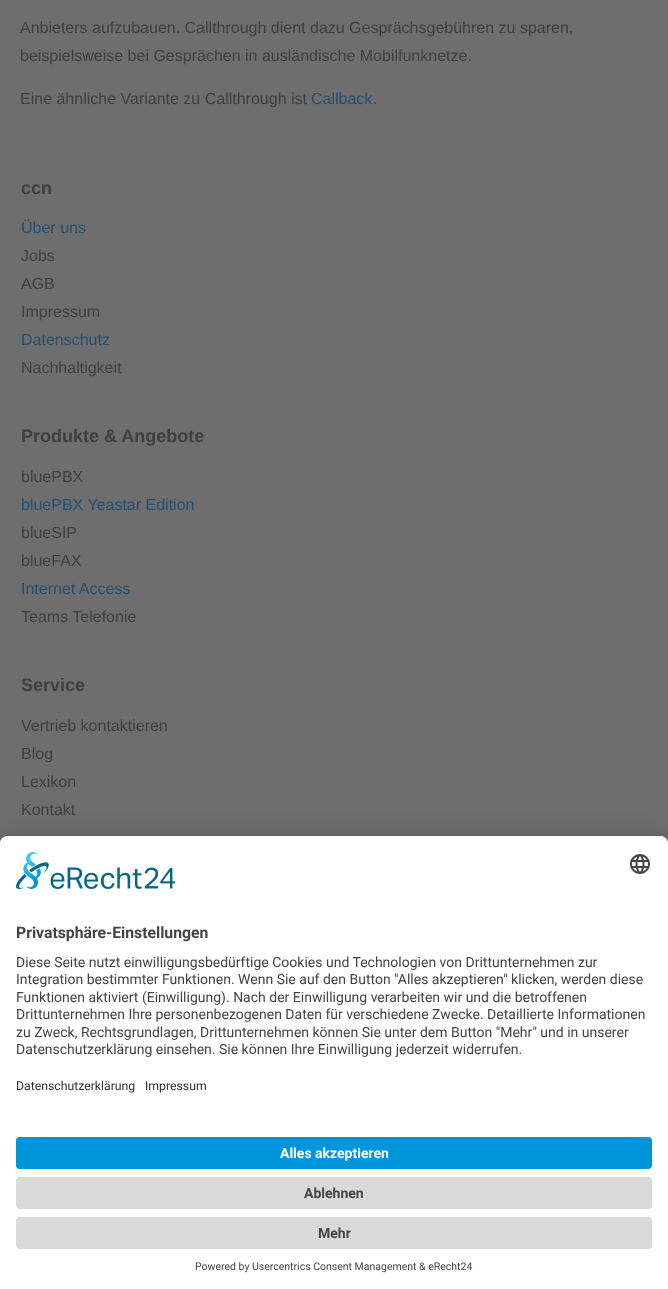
(async () => {
  const canvas = document.querySelector("canvas");
  canvas.width = 668;
  canvas.height = 1289;
  const ctx = canvas.getContext("2d");
  ctx.miterLimit = 4;
  ctx.fontKerning = "normal";
  async function loadImage(src) {
    const img = new Image();
    img.src = src;
    await img.decode();
    return img;
  }

  ctx.fillStyle = "#6e6e6e";
  ctx.fillRect(0, 0, 668, 1289);
  ctx.fillStyle = "rgba(0, 0, 0, 0.3)";
  ctx.filter = "blur(14px)";
  ctx.beginPath();
  ctx.roundRect(0, 856, 668, 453, 8);
  ctx.fill();
  ctx.filter = "none";
  ctx.fillStyle = "rgba(0, 0, 0, 0.22)";
  ctx.filter = "blur(13px)";
  ctx.beginPath();
  ctx.roundRect(0, 841, 668, 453, 8);
  ctx.fill();
  ctx.filter = "none";
  ctx.fillStyle = "#ffffff";
  ctx.beginPath();
  ctx.roundRect(0, 836, 668, 453, [8, 8, 0, 0]);
  ctx.fill();
  ctx.beginPath();
  ctx.roundRect(0, 836, 668, 289, [8, 8, 0, 0]);
  ctx.fill();
  ctx.drawImage(await loadImage("img/1.png"), 16, 852, 160, 37);
  ctx.drawImage(await loadImage("img/2.png"), 630, 854, 20, 20);
  ctx.fillStyle = "#0094d8";
  ctx.beginPath();
  ctx.roundRect(16, 1137, 636, 32, 4);
  ctx.fill();
  ctx.fillStyle = "#d9d9d9";
  ctx.beginPath();
  ctx.roundRect(16, 1177, 636, 32, 4);
  ctx.fill();
  ctx.beginPath();
  ctx.roundRect(16, 1217, 636, 32, 4);
  ctx.fill();
  ctx.font = "16px Liberation Sans";
  ctx.fillStyle = "#3e3f40";
  for (const [text, x, y] of [
    ["Anbieters aufzubauen. Callthrough dient dazu Gesprächsgebühren zu sparen,", 20, 33],
    ["beispielsweise bei Gesprächen in ausländische Mobilfunknetze.", 20, 61],
    ["Eine ähnliche Variante zu Callthrough ist", 20, 104],
  ]) {
    ctx.fillText(text, x, y);
  }
  ctx.fillStyle = "#244f70";
  ctx.fillText("Callback", 311, 104);
  ctx.fillStyle = "#3e3f40";
  ctx.fillText(".", 373, 104);
  ctx.font = "bold 18px Liberation Sans";
  ctx.fillText("ccn", 21, 194);
  ctx.font = "16px Liberation Sans";
  ctx.fillStyle = "#244f70";
  ctx.fillText("Über uns", 21, 233);
  ctx.fillStyle = "#3e3f40";
  for (const [text, x, y] of [
    ["Jobs", 21, 261],
    ["AGB", 21, 289],
    ["Impressum", 21, 317],
  ]) {
    ctx.fillText(text, x, y);
  }
  ctx.fillStyle = "#244f70";
  ctx.fillText("Datenschutz", 21, 345);
  ctx.fillStyle = "#3e3f40";
  ctx.fillText("Nachhaltigkeit", 21, 373);
  ctx.font = "bold 18px Liberation Sans";
  ctx.fillText("Produkte & Angebote", 21, 442);
  ctx.font = "16px Liberation Sans";
  ctx.fillText("bluePBX", 21, 482);
  ctx.fillStyle = "#244f70";
  ctx.fillText("bluePBX Yeastar Edition", 21, 510);
  ctx.fillStyle = "#3e3f40";
  ctx.fillText("blueSIP", 21, 538);
  ctx.fillText("blueFAX", 21, 566);
  ctx.fillStyle = "#244f70";
  ctx.fillText("Internet Access", 21, 594);
  ctx.fillStyle = "#3e3f40";
  ctx.fillText("Teams Telefonie", 21, 622);
  ctx.font = "bold 18px Liberation Sans";
  ctx.fillText("Service", 21, 691);
  ctx.font = "16px Liberation Sans";
  for (const [text, x, y] of [
    ["Vertrieb kontaktieren", 21, 731],
    ["Blog", 21, 759],
    ["Lexikon", 21, 787],
    ["Kontakt", 21, 815],
  ]) {
    ctx.fillText(text, x, y);
  }
  ctx.font = "bold 15.75px Roboto";
  ctx.fillStyle = "#444444";
  ctx.fillText("Privatsphäre-Einstellungen", 16, 938);
  ctx.font = "14px Roboto";
  for (const [text, x, y] of [
    ["Diese Seite nutzt einwilligungsbedürftige Cookies und Technologien von Drittunternehmen zur", 16, 967],
    ["Integration bestimmter Funktionen. Wenn Sie auf den Button \"Alles akzeptieren\" klicken, werden diese", 16, 984],
    ["Funktionen aktiviert (Einwilligung). Nach der Einwilligung verarbeiten wir und die betroffenen", 16, 1002],
    ["Drittunternehmen Ihre personenbezogenen Daten für verschiedene Zwecke. Detaillierte Informationen", 16, 1019],
    ["zu Zweck, Rechtsgrundlagen, Drittunternehmen können Sie unter dem Button \"Mehr\" und in unserer", 16, 1037],
    ["Datenschutzerklärung einsehen. Sie können Ihre Einwilligung jederzeit widerrufen.", 16, 1054],
  ]) {
    ctx.fillText(text, x, y);
  }
  ctx.font = "12.25px Roboto";
  ctx.fillStyle = "#303030";
  ctx.fillText("Datenschutzerklärung", 16, 1090);
  ctx.fillText("Impressum", 145, 1090);
  ctx.font = "bold 14px Roboto";
  ctx.fillStyle = "#ffffff";
  ctx.fillText("Alles akzeptieren", 280, 1158);
  ctx.fillStyle = "#444444";
  ctx.fillText("Ablehnen", 304, 1198);
  ctx.fillText("Mehr", 318, 1238);
  ctx.font = "10.5px Roboto";
  ctx.fillText("Powered by Usercentrics Consent Management & eRecht24", 195, 1270);
})();
